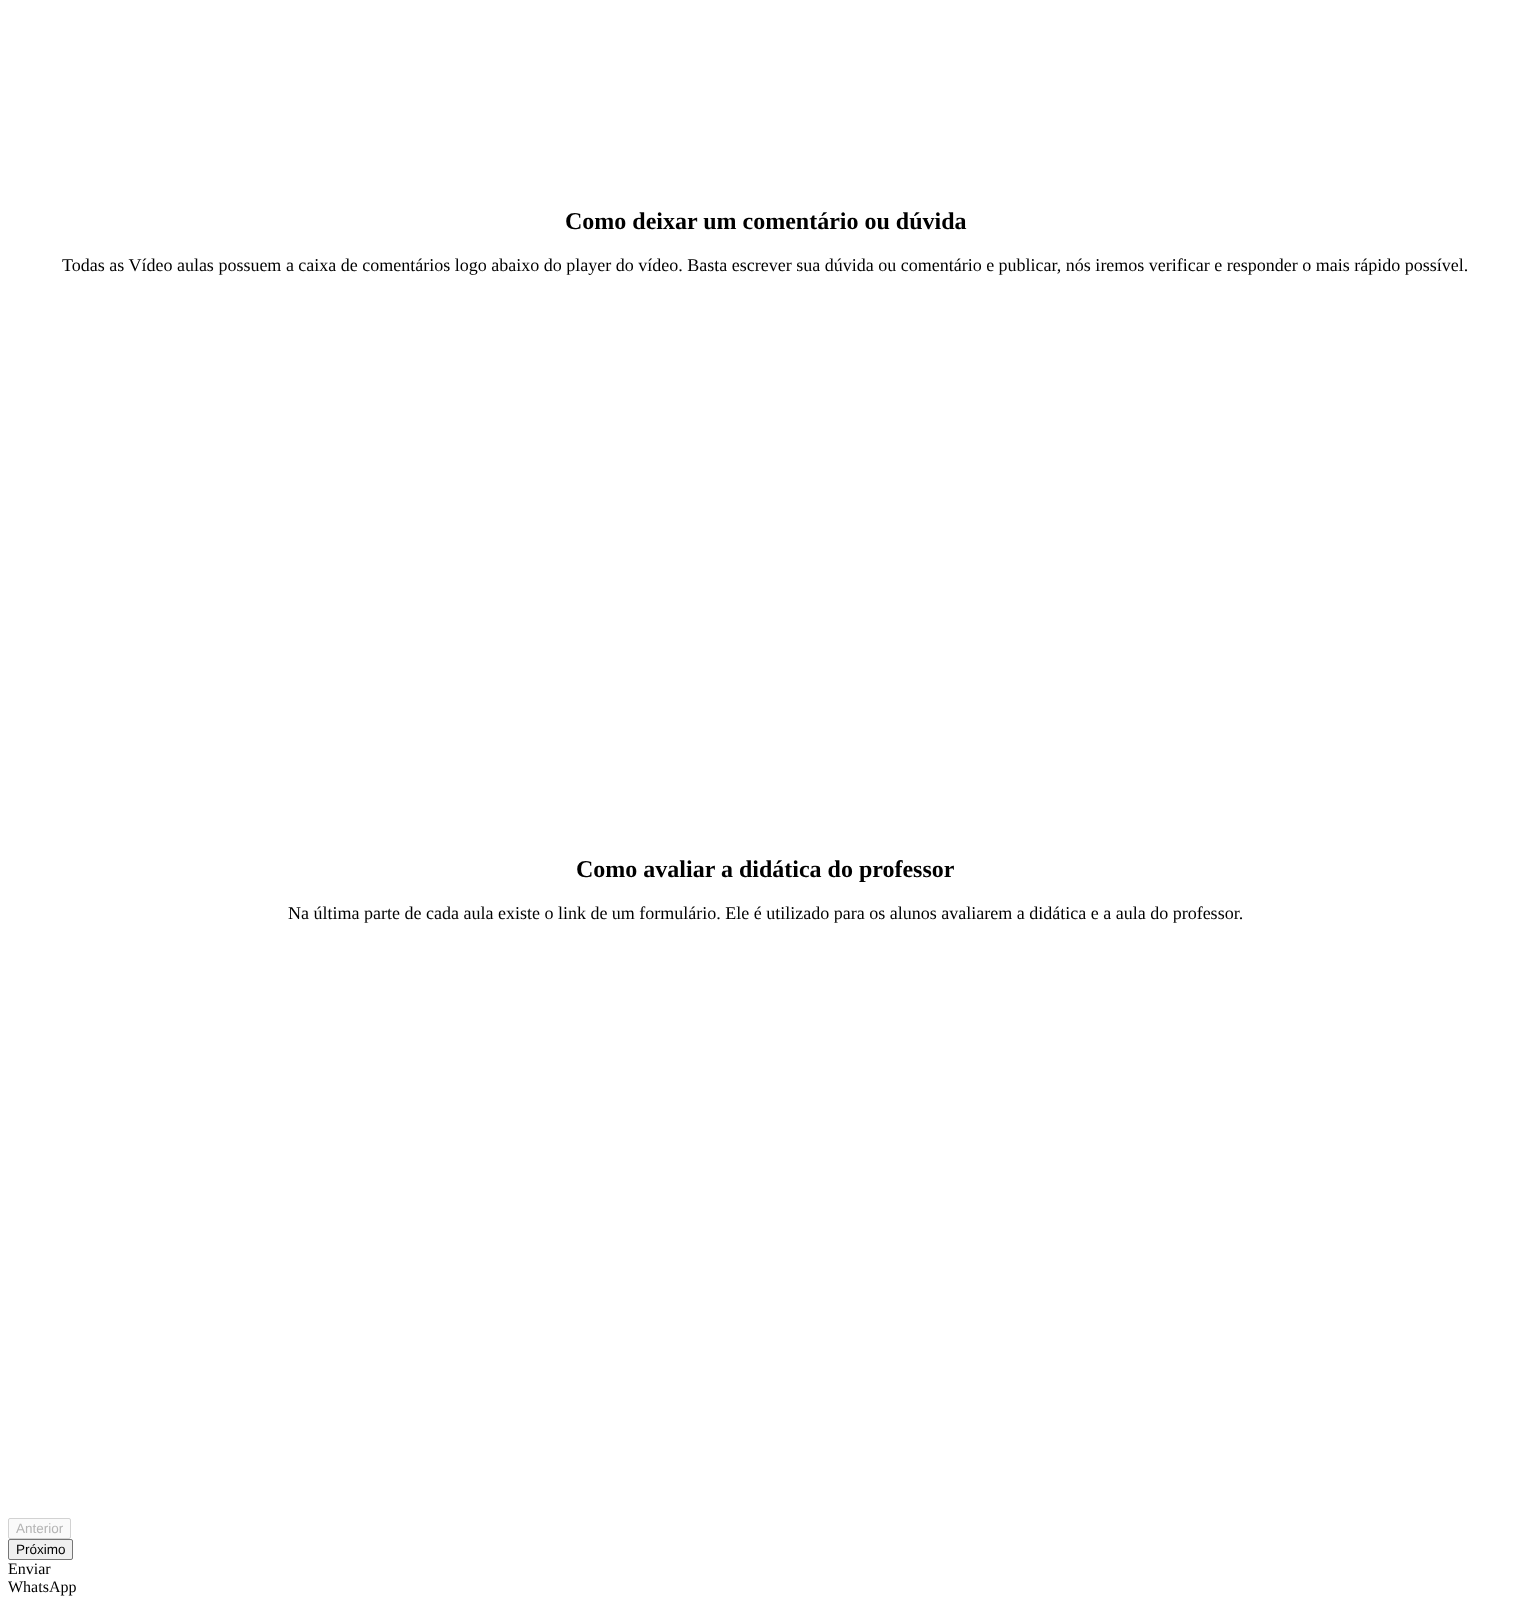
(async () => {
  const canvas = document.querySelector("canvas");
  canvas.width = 1531;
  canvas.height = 1622;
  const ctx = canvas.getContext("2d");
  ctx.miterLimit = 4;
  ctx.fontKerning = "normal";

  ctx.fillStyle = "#ffffff";
  ctx.fillRect(0, 0, 1531, 1622);
  ctx.fillStyle = "#fafafa";
  ctx.beginPath();
  ctx.roundRect(8.5, 1518.5, 62, 20, 1.5);
  ctx.fill();
  ctx.strokeStyle = "#d2d2d2";
  ctx.stroke();
  ctx.fillStyle = "#efefef";
  ctx.beginPath();
  ctx.roundRect(8.5, 1539.5, 64, 20, 1.5);
  ctx.fill();
  ctx.strokeStyle = "#767676";
  ctx.stroke();
  ctx.font = "bold 24px Liberation Serif";
  ctx.fillStyle = "#000000";
  ctx.fillText("Como deixar um comentário ou dúvida", 565, 229);
  ctx.font = "18px Liberation Serif";
  ctx.fillText("Todas as Vídeo aulas possuem a caixa de comentários logo abaixo do player do vídeo. Basta escrever sua dúvida ou comentário e publicar, nós iremos verificar e responder o mais rápido possível.", 62, 271);
  ctx.font = "bold 24px Liberation Serif";
  ctx.fillText("Como avaliar a didática do professor", 576, 877);
  ctx.font = "18px Liberation Serif";
  ctx.fillText("Na última parte de cada aula existe o link de um formulário. Ele é utilizado para os alunos avaliarem a didática e a aula do professor.", 288, 919);
  ctx.font = "13.5px Liberation Sans";
  ctx.fillStyle = "#b4b4b4";
  ctx.fillText("Anterior", 16, 1533);
  ctx.fillStyle = "#000000";
  ctx.fillText("Próximo", 16, 1554);
  ctx.font = "16px Liberation Serif";
  ctx.fillText("Enviar", 8, 1574);
  ctx.fillText("WhatsApp", 8, 1592);
})();
